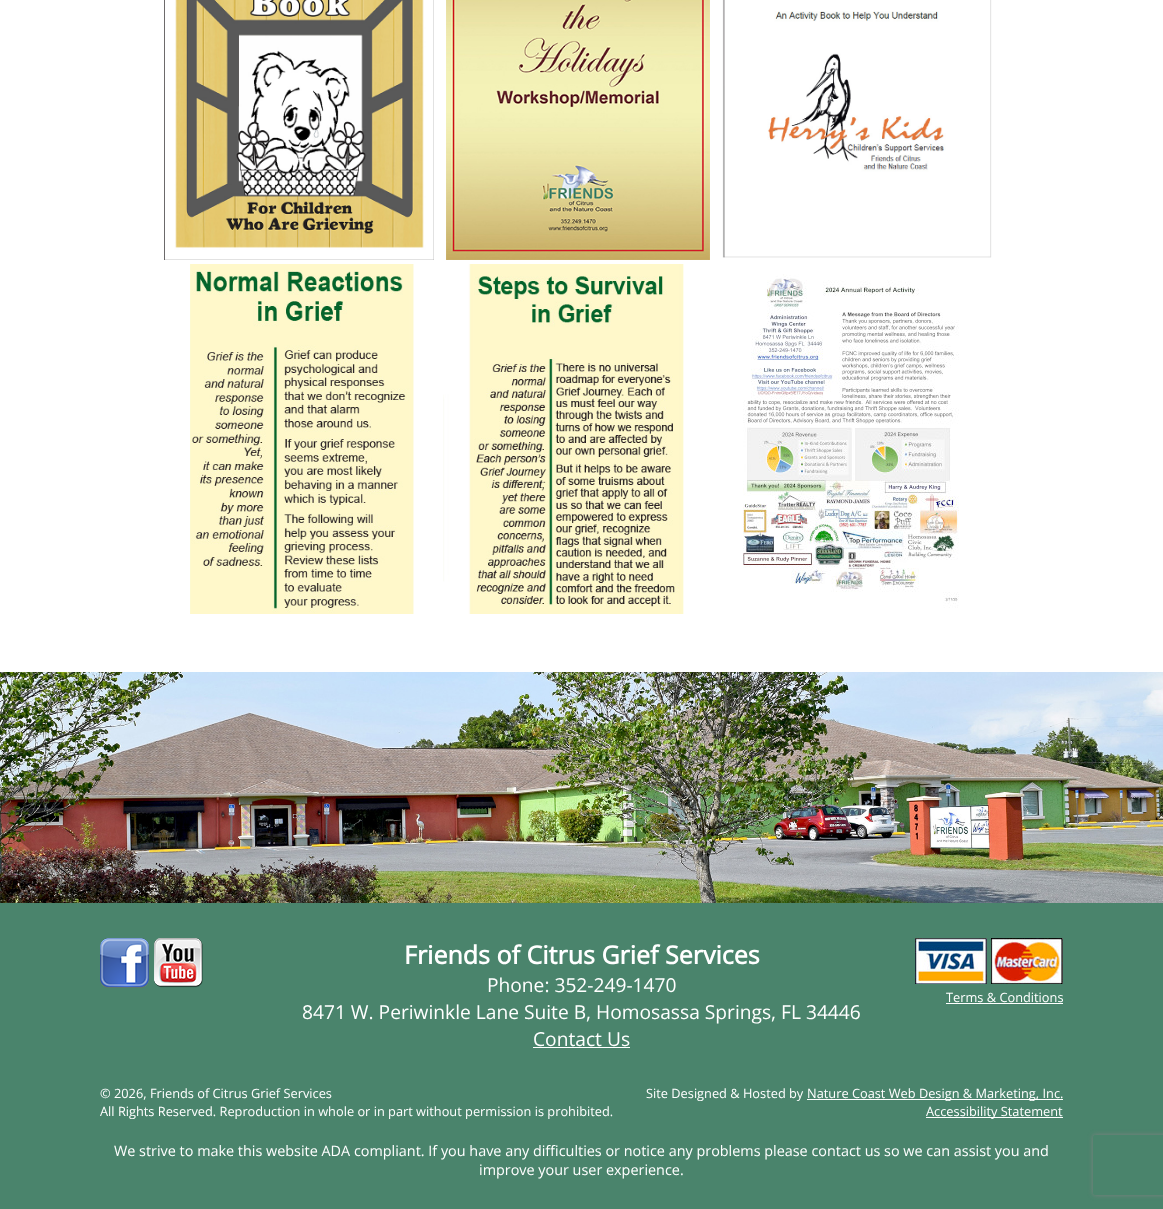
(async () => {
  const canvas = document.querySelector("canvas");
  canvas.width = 1163;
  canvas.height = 1209;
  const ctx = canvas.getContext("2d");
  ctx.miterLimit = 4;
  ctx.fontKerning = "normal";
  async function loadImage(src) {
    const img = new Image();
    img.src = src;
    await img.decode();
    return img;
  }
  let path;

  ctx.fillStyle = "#ffffff";
  ctx.fillRect(0, 0, 1163, 1209);
  ctx.drawImage(await loadImage("img/1.png"), 164, 0, 270, 260);
  ctx.drawImage(await loadImage("img/2.png"), 446, 0, 264, 260);
  ctx.drawImage(await loadImage("img/3.png"), 722, 0, 270, 258);
  ctx.drawImage(await loadImage("img/4.png"), 190, 264, 224, 350);
  ctx.drawImage(await loadImage("img/5.png"), 443, 264, 241, 350);
  ctx.drawImage(await loadImage("img/6.png"), 743, 274, 216, 334);
  ctx.drawImage(await loadImage("img/7.png"), 0, 672, 1163, 231);
  ctx.fillStyle = "#4a846c";
  ctx.fillRect(0, 903, 1163, 306);
  ctx.drawImage(await loadImage("img/8.png"), 100, 938, 50, 50);
  ctx.drawImage(await loadImage("img/9.png"), 154, 938, 49, 50);
  ctx.fillStyle = "#ffffff";
  ctx.fillRect(533, 1047, 97, 1);
  ctx.drawImage(await loadImage("img/10.png"), 915, 938, 148, 46);
  for (const [x, y, w, h, color] of [
    [946, 1003, 117, 1, "#ffffff"],
    [807, 1099, 256, 1, "#ffffff"],
    [926, 1117, 137, 1, "#ffffff"],
  ]) {
    ctx.fillStyle = color;
    ctx.fillRect(x, y, w, h);
  }
  ctx.save();
  path = new Path2D("M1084 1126H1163V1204H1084ZM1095 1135H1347C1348 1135 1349 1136 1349 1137V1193C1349 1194 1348 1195 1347 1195H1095C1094 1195 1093 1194 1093 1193V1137C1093 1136 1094 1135 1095 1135Z");
  ctx.clip(path, "evenodd");
  ctx.fillStyle = "#808080";
  ctx.filter = "blur(2.5px)";
  ctx.beginPath();
  ctx.roundRect(1093, 1135, 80, 60, 2);
  ctx.fill();
  ctx.filter = "none";
  ctx.restore();
  ctx.font = "bold 25px Open Sans";
  ctx.fillText("Friends of Citrus Grief Services", 404, 964);
  ctx.font = "19.2px Open Sans";
  for (const [text, x, y] of [
    ["Phone: 352-249-1470", 487, 992],
    ["8471 W. Periwinkle Lane Suite B, Homosassa Springs, FL 34446", 302, 1019],
    ["Contact Us", 533, 1046],
  ]) {
    ctx.fillText(text, x, y);
  }
  ctx.font = "12.8px Open Sans";
  for (const [text, x, y] of [
    ["Terms & Conditions", 946, 1002],
    ["© 2026, Friends of Citrus Grief Services", 100, 1098],
    ["All Rights Reserved. Reproduction in whole or in part without permission is prohibited.", 100, 1116],
    ["Site Designed & Hosted by", 646, 1098],
    ["Nature Coast Web Design & Marketing, Inc.", 807, 1098],
    ["Accessibility Statement", 926, 1116],
  ]) {
    ctx.fillText(text, x, y);
  }
  ctx.font = "14.4px Open Sans";
  ctx.fillText("We strive to make this website ADA compliant. If you have any difficulties or notice any problems please contact us so we can assist you and", 114, 1156);
  ctx.fillText("improve your user experience.", 479, 1175);
})();
